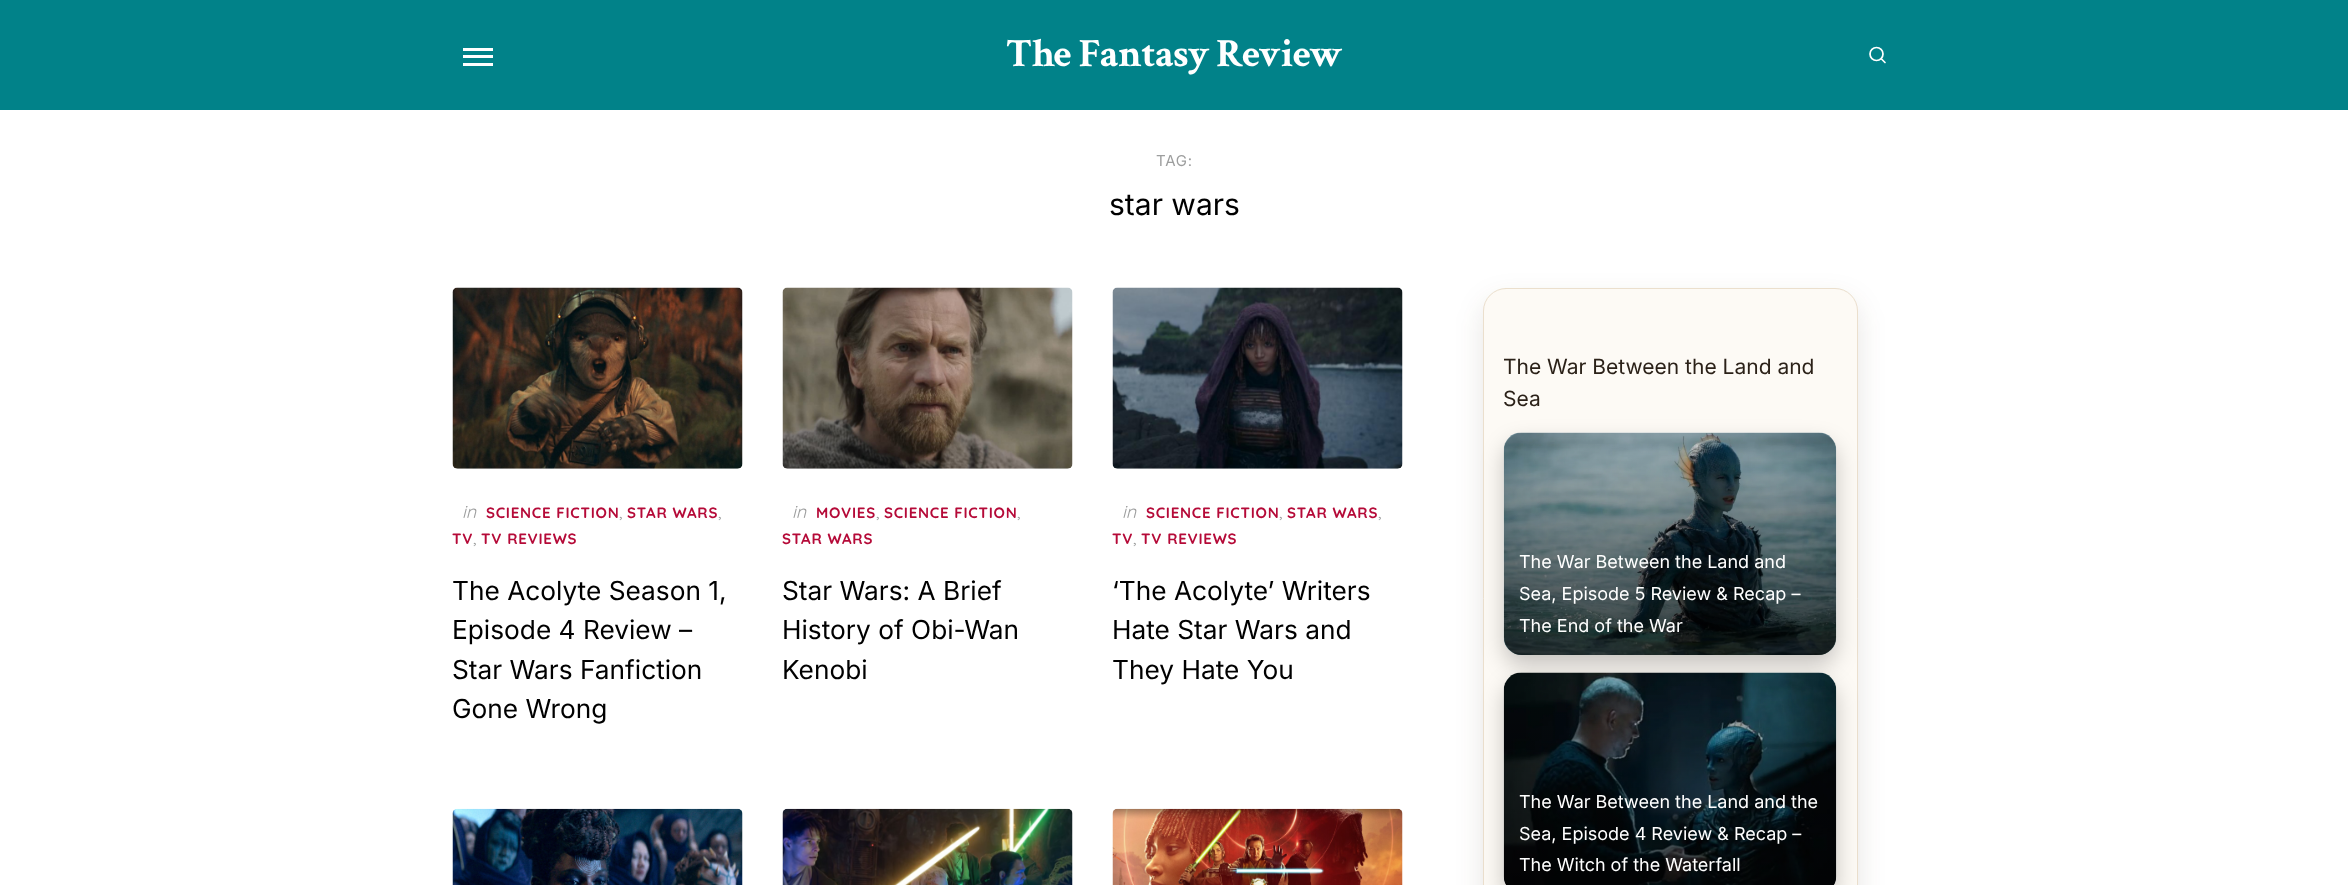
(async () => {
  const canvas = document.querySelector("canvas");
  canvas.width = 2348;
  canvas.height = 885;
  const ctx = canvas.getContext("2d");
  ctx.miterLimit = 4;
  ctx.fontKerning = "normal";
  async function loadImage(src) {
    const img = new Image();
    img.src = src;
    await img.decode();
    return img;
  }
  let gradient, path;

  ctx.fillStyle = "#ffffff";
  ctx.fillRect(0, 0, 2348, 885);
  for (const [x, y, w, h, color] of [
    [0, 0, 2348, 110, "#018289"],
    [463, 55, 30, 3, "#ffffff"],
    [463, 48, 30, 3, "#ffffff"],
    [463, 63, 30, 3, "#ffffff"],
  ]) {
    ctx.fillStyle = color;
    ctx.fillRect(x, y, w, h);
  }
  ctx.beginPath();
  ctx.arc(1876.5, 54, 6.5, 0, Math.PI * 2);
  ctx.strokeStyle = "#ffffff";
  ctx.lineWidth = 1.7;
  ctx.stroke();
  path = new Path2D("M1885 62.5L1881.5 59");
  ctx.lineCap = "round";
  ctx.lineJoin = "round";
  ctx.stroke(path);
  ctx.drawImage(await loadImage("img/1.png"), 452, 287, 291, 182);
  ctx.drawImage(await loadImage("img/2.png"), 782, 287, 291, 182);
  ctx.drawImage(await loadImage("img/3.png"), 1112, 287, 291, 182);
  ctx.drawImage(await loadImage("img/4.png"), 452, 808, 291, 77);
  ctx.drawImage(await loadImage("img/5.png"), 782, 808, 291, 77);
  ctx.drawImage(await loadImage("img/6.png"), 1112, 808, 291, 77);
  ctx.fillStyle = "rgba(60, 40, 20, 0.12)";
  ctx.filter = "blur(14px)";
  ctx.beginPath();
  ctx.roundRect(1483, 300, 375, 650, 23);
  ctx.fill();
  ctx.filter = "none";
  ctx.fillStyle = "#fdfaf5";
  ctx.beginPath();
  ctx.roundRect(1483.5, 288.5, 374, 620, 22.5);
  ctx.fill();
  ctx.strokeStyle = "#ebdfcd";
  ctx.lineWidth = 1;
  ctx.lineJoin = "miter";
  ctx.stroke();
  ctx.fillStyle = "rgba(0, 0, 0, 0.22)";
  ctx.filter = "blur(11px)";
  ctx.beginPath();
  ctx.roundRect(1504, 443, 332, 222, 18);
  ctx.fill();
  ctx.filter = "none";
  ctx.drawImage(await loadImage("img/7.png"), 1503, 432, 334, 223);
  gradient = ctx.createLinearGradient(1670, 433, 1670, 655);
  gradient.addColorStop(0, "rgba(0, 0, 0, 0.15)");
  gradient.addColorStop(1, "rgba(0, 0, 0, 0.7)");
  ctx.fillStyle = gradient;
  ctx.beginPath();
  ctx.roundRect(1504, 433, 332, 222, 18);
  ctx.fill();
  ctx.fillStyle = "rgba(0, 0, 0, 0.22)";
  ctx.filter = "blur(11px)";
  ctx.beginPath();
  ctx.roundRect(1504, 683, 332, 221, 18);
  ctx.fill();
  ctx.filter = "none";
  ctx.drawImage(await loadImage("img/8.png"), 1503, 672, 334, 213);
  gradient = ctx.createLinearGradient(1670, 673, 1670, 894);
  gradient.addColorStop(0, "rgba(0, 0, 0, 0.15)");
  gradient.addColorStop(1, "rgba(0, 0, 0, 0.7)");
  ctx.fillStyle = gradient;
  ctx.beginPath();
  ctx.roundRect(1504, 673, 332, 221, 18);
  ctx.fill();
  ctx.letterSpacing = "-0.6px";
  ctx.font = "bold 40px Crimson Text";
  ctx.fillStyle = "#ffffff";
  ctx.fillText("The Fantasy Review", 1006, 66);
  ctx.letterSpacing = "0.75px";
  ctx.font = "15px Inter";
  ctx.fillStyle = "#9d9e9e";
  ctx.fillText("TAG:", 1156, 166);
  ctx.letterSpacing = "0px";
  ctx.font = "30px Inter";
  ctx.fillStyle = "#000000";
  ctx.fillText("star wars", 1109, 215);
  ctx.font = "italic 18px Quicksand";
  ctx.fillStyle = "#9d9e9e";
  ctx.fillText("in", 462, 518);
  ctx.letterSpacing = "0.75px";
  ctx.font = "bold 15px Quicksand";
  ctx.fillStyle = "#b50a38";
  ctx.fillText("SCIENCE FICTION", 486, 518);
  ctx.letterSpacing = "0px";
  ctx.font = "18px Quicksand";
  ctx.fillStyle = "#9d9e9e";
  ctx.fillText(",", 619, 518);
  ctx.letterSpacing = "0.75px";
  ctx.font = "bold 15px Quicksand";
  ctx.fillStyle = "#b50a38";
  ctx.fillText("STAR WARS", 627, 518);
  ctx.letterSpacing = "0px";
  ctx.font = "18px Quicksand";
  ctx.fillStyle = "#9d9e9e";
  ctx.fillText(",", 718, 518);
  ctx.letterSpacing = "0.75px";
  ctx.font = "bold 15px Quicksand";
  ctx.fillStyle = "#b50a38";
  ctx.fillText("TV", 452, 544);
  ctx.letterSpacing = "0px";
  ctx.font = "18px Quicksand";
  ctx.fillStyle = "#9d9e9e";
  ctx.fillText(",", 473, 544);
  ctx.letterSpacing = "0.75px";
  ctx.font = "bold 15px Quicksand";
  ctx.fillStyle = "#b50a38";
  ctx.fillText("TV REVIEWS", 481, 544);
  ctx.letterSpacing = "0px";
  ctx.font = "26.25px Inter";
  ctx.fillStyle = "#000000";
  for (const [text, x, y] of [
    ["The Acolyte Season 1,", 452, 600],
    ["Episode 4 Review –", 452, 639],
    ["Star Wars Fanfiction", 452, 679],
    ["Gone Wrong", 452, 718],
  ]) {
    ctx.fillText(text, x, y);
  }
  ctx.font = "italic 18px Quicksand";
  ctx.fillStyle = "#9d9e9e";
  ctx.fillText("in", 792, 518);
  ctx.letterSpacing = "0.75px";
  ctx.font = "bold 15px Quicksand";
  ctx.fillStyle = "#b50a38";
  ctx.fillText("MOVIES", 816, 518);
  ctx.letterSpacing = "0px";
  ctx.font = "18px Quicksand";
  ctx.fillStyle = "#9d9e9e";
  ctx.fillText(",", 876, 518);
  ctx.letterSpacing = "0.75px";
  ctx.font = "bold 15px Quicksand";
  ctx.fillStyle = "#b50a38";
  ctx.fillText("SCIENCE FICTION", 884, 518);
  ctx.letterSpacing = "0px";
  ctx.font = "18px Quicksand";
  ctx.fillStyle = "#9d9e9e";
  ctx.fillText(",", 1017, 518);
  ctx.letterSpacing = "0.75px";
  ctx.font = "bold 15px Quicksand";
  ctx.fillStyle = "#b50a38";
  ctx.fillText("STAR WARS", 782, 544);
  ctx.letterSpacing = "0px";
  ctx.font = "26.25px Inter";
  ctx.fillStyle = "#000000";
  for (const [text, x, y] of [
    ["Star Wars: A Brief", 782, 600],
    ["History of Obi-Wan", 782, 639],
    ["Kenobi", 782, 679],
  ]) {
    ctx.fillText(text, x, y);
  }
  ctx.font = "italic 18px Quicksand";
  ctx.fillStyle = "#9d9e9e";
  ctx.fillText("in", 1122, 518);
  ctx.letterSpacing = "0.75px";
  ctx.font = "bold 15px Quicksand";
  ctx.fillStyle = "#b50a38";
  ctx.fillText("SCIENCE FICTION", 1146, 518);
  ctx.letterSpacing = "0px";
  ctx.font = "18px Quicksand";
  ctx.fillStyle = "#9d9e9e";
  ctx.fillText(",", 1279, 518);
  ctx.letterSpacing = "0.75px";
  ctx.font = "bold 15px Quicksand";
  ctx.fillStyle = "#b50a38";
  ctx.fillText("STAR WARS", 1287, 518);
  ctx.letterSpacing = "0px";
  ctx.font = "18px Quicksand";
  ctx.fillStyle = "#9d9e9e";
  ctx.fillText(",", 1378, 518);
  ctx.letterSpacing = "0.75px";
  ctx.font = "bold 15px Quicksand";
  ctx.fillStyle = "#b50a38";
  ctx.fillText("TV", 1112, 544);
  ctx.letterSpacing = "0px";
  ctx.font = "18px Quicksand";
  ctx.fillStyle = "#9d9e9e";
  ctx.fillText(",", 1133, 544);
  ctx.letterSpacing = "0.75px";
  ctx.font = "bold 15px Quicksand";
  ctx.fillStyle = "#b50a38";
  ctx.fillText("TV REVIEWS", 1141, 544);
  ctx.letterSpacing = "0px";
  ctx.font = "26.25px Inter";
  ctx.fillStyle = "#000000";
  for (const [text, x, y] of [
    ["‘The Acolyte’ Writers", 1112, 600],
    ["Hate Star Wars and", 1112, 639],
    ["They Hate You", 1112, 679],
  ]) {
    ctx.fillText(text, x, y);
  }
  ctx.font = "21px Inter";
  ctx.fillStyle = "#2b2118";
  ctx.fillText("The War Between the Land and", 1503, 374);
  ctx.fillText("Sea", 1503, 406);
  ctx.font = "18px Inter";
  ctx.fillStyle = "#ffffff";
  for (const [text, x, y] of [
    ["The War Between the Land and", 1519, 568],
    ["Sea, Episode 5 Review & Recap –", 1519, 600],
    ["The End of the War", 1519, 632],
    ["The War Between the Land and the", 1519, 808],
    ["Sea, Episode 4 Review & Recap –", 1519, 840],
    ["The Witch of the Waterfall", 1519, 871],
  ]) {
    ctx.fillText(text, x, y);
  }
})();
